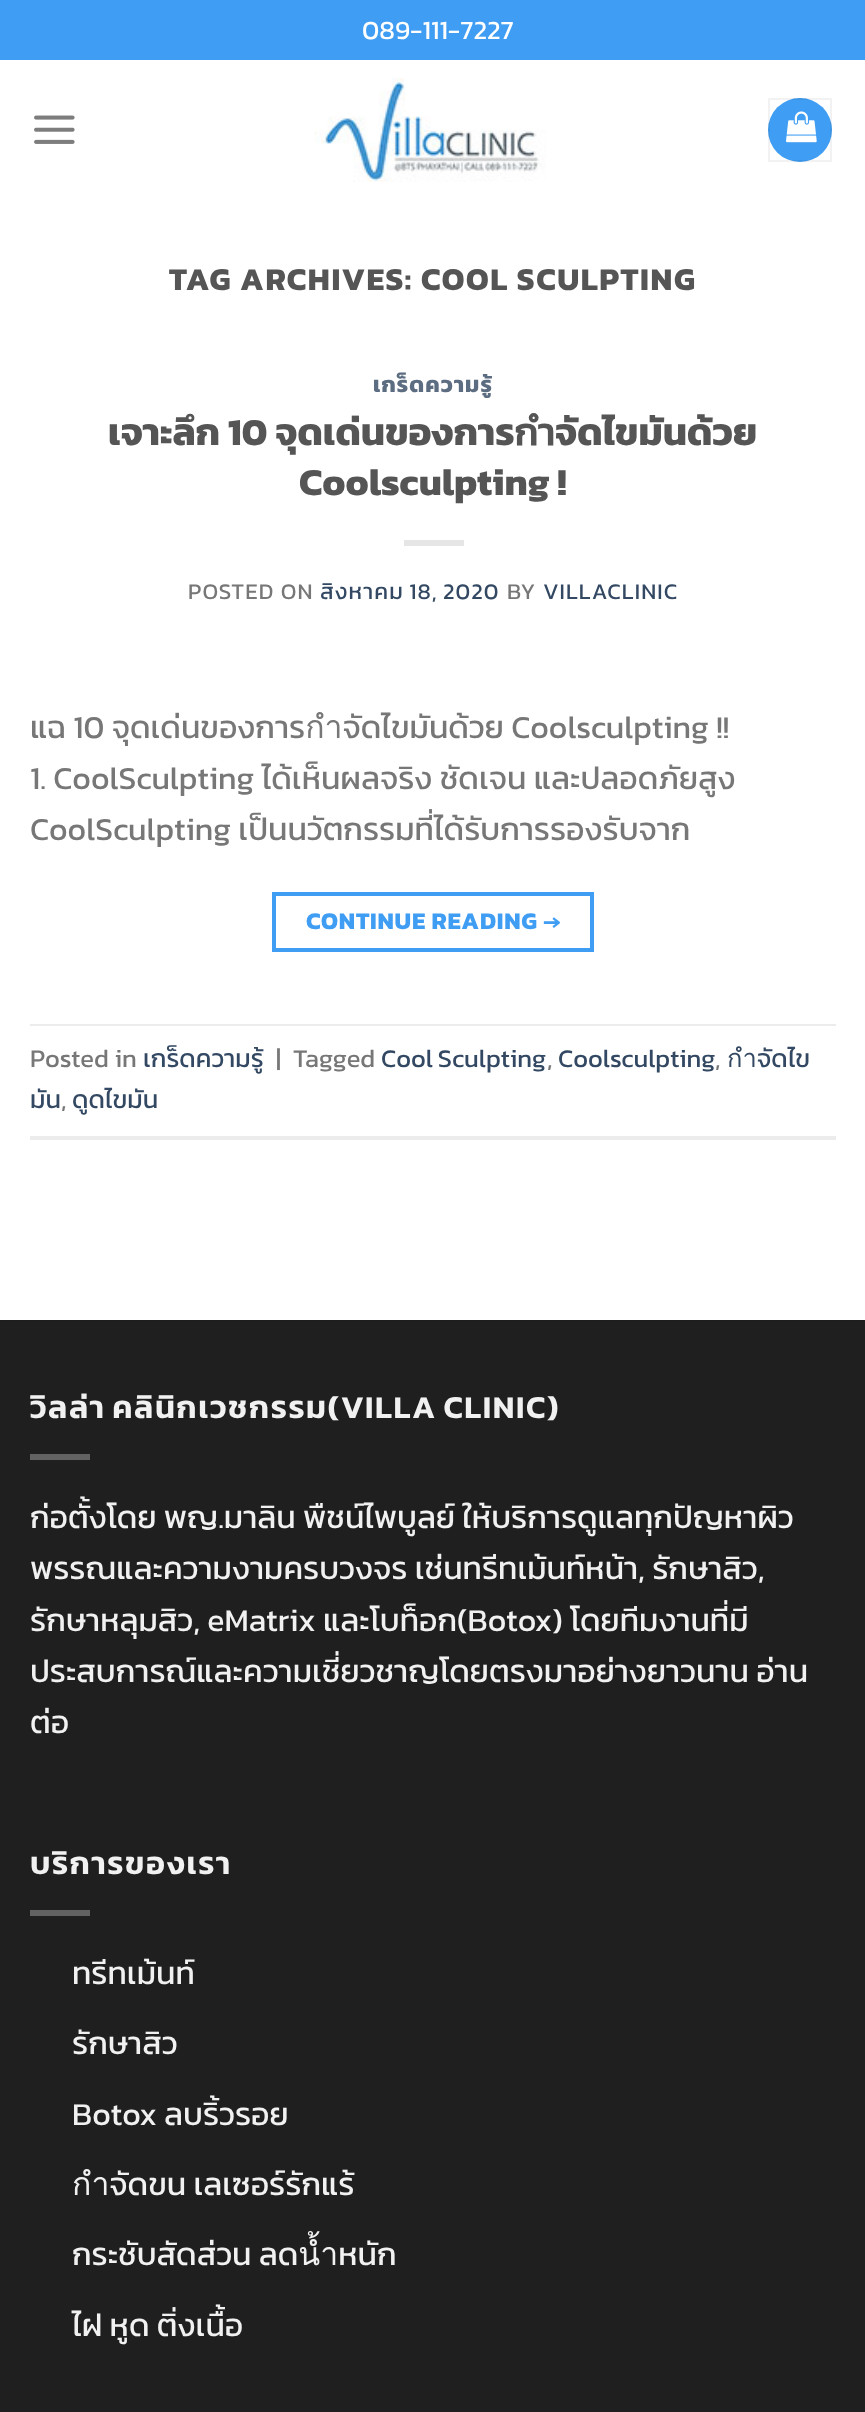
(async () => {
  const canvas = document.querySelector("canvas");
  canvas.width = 865;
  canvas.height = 2412;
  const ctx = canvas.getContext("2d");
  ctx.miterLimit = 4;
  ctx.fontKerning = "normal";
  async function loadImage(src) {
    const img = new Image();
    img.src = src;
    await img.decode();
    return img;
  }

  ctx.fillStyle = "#ffffff";
  ctx.fillRect(0, 0, 865, 2412);
  ctx.fillStyle = "#3f9df3";
  ctx.fillRect(0, 0, 865, 60);
  ctx.drawImage(await loadImage("img/1.png"), 34, 115, 41, 29);
  ctx.drawImage(await loadImage("img/2.png"), 314, 78, 232, 104);
  ctx.beginPath();
  ctx.arc(800, 130, 32, 0, Math.PI * 2);
  ctx.fill();
  ctx.strokeStyle = "rgba(0, 0, 0, 0.05)";
  ctx.lineWidth = 2;
  ctx.strokeRect(769, 99, 62, 62);
  ctx.drawImage(await loadImage("img/3.png"), 786, 111, 31, 32);
  ctx.fillStyle = "#e6e6e6";
  ctx.fillRect(404, 540, 60, 6);
  ctx.strokeStyle = "#3f9df3";
  ctx.lineWidth = 4;
  ctx.strokeRect(274, 894, 318, 56);
  for (const [x, y, w, h, color] of [
    [30, 1024, 806, 2, "#ececec"],
    [30, 1136, 806, 4, "#ececec"],
    [0, 1322, 865, 1090, "#1f1f1f"],
    [0, 1320, 865, 2, "#1d1d1d"],
    [30, 1454, 60, 6, "#626262"],
    [30, 1910, 60, 6, "#626262"],
  ]) {
    ctx.fillStyle = color;
    ctx.fillRect(x, y, w, h);
  }
  ctx.font = "26.5px Kanit";
  ctx.fillStyle = "#ffffff";
  ctx.fillText("089-111-7227", 362, 39);
  ctx.letterSpacing = "1.6px";
  ctx.font = "bold 32px Kanit";
  ctx.fillStyle = "#555555";
  ctx.fillText("TAG ARCHIVES: COOL SCULPTING", 169, 290);
  ctx.letterSpacing = "1.1px";
  ctx.font = "bold 22.5px Kanit";
  ctx.fillStyle = "#5c6d81";
  ctx.fillText("เกร็ดความรู้", 373, 392);
  ctx.letterSpacing = "0px";
  ctx.font = "bold 38.4px Kanit";
  ctx.fillStyle = "#555555";
  ctx.fillText("เจาะลึก 10 จุดเด่นของการกำจัดไขมันด้วย", 108, 445);
  ctx.fillText("Coolsculpting !", 299, 495);
  ctx.letterSpacing = "1.1px";
  ctx.font = "22.5px Kanit";
  ctx.fillStyle = "#777777";
  ctx.fillText("POSTED ON", 188, 599);
  ctx.wordSpacing = "-1px";
  ctx.fillStyle = "#334862";
  ctx.fillText("สิงหาคม 18, 2020", 320, 599);
  ctx.wordSpacing = "0px";
  ctx.fillStyle = "#777777";
  ctx.fillText("BY", 507, 599);
  ctx.fillStyle = "#334862";
  ctx.fillText("VILLACLINIC", 543, 599);
  ctx.letterSpacing = "0px";
  ctx.font = "32px Kanit";
  ctx.fillStyle = "#777777";
  for (const [text, x, y] of [
    ["แฉ 10 จุดเด่นของการกำจัดไขมันด้วย Coolsculpting !!", 30, 738],
    ["1. CoolSculpting ได้เห็นผลจริง ชัดเจน และปลอดภัยสูง", 30, 789],
    ["CoolSculpting เป็นนวัตกรรมที่ได้รับการรองรับจาก", 30, 840],
  ]) {
    ctx.fillText(text, x, y);
  }
  ctx.letterSpacing = "0.75px";
  ctx.font = "bold 24px Kanit";
  ctx.fillStyle = "#3f9df3";
  ctx.fillText("CONTINUE READING →", 306, 929);
  ctx.letterSpacing = "0px";
  ctx.font = "25.5px Kanit";
  ctx.fillStyle = "#777777";
  ctx.fillText("Posted in", 30, 1067);
  ctx.fillStyle = "#334862";
  ctx.fillText("เกร็ดความรู้", 143, 1067);
  ctx.fillStyle = "#777777";
  ctx.fillText("|", 276, 1067);
  ctx.fillText("Tagged", 293, 1067);
  ctx.wordSpacing = "-1px";
  ctx.fillStyle = "#334862";
  ctx.fillText("Cool Sculpting", 381, 1067);
  ctx.wordSpacing = "0px";
  ctx.fillStyle = "#777777";
  ctx.fillText(",", 547, 1067);
  ctx.fillStyle = "#334862";
  ctx.fillText("Coolsculpting", 558, 1067);
  ctx.fillStyle = "#777777";
  ctx.fillText(",", 715, 1067);
  ctx.fillStyle = "#334862";
  ctx.fillText("กำจัดไข", 727, 1067);
  ctx.fillText("มัน", 30, 1108);
  ctx.fillStyle = "#777777";
  ctx.fillText(",", 61, 1108);
  ctx.fillStyle = "#334862";
  ctx.fillText("ดูดไขมัน", 72, 1108);
  ctx.letterSpacing = "1.6px";
  ctx.wordSpacing = "-2px";
  ctx.font = "600 32px Kanit";
  ctx.fillStyle = "#f1f1f1";
  ctx.fillText("วิลล่า คลินิกเวชกรรม(VILLA CLINIC)", 30, 1418);
  ctx.letterSpacing = "0px";
  ctx.wordSpacing = "0px";
  ctx.font = "32px Kanit";
  for (const [text, x, y] of [
    ["ก่อตั้งโดย พญ.มาลิน พืชน์ไพบูลย์ ให้บริการดูแลทุกปัญหาผิว", 30, 1528],
    ["พรรณและความงามครบวงจร เช่นทรีทเม้นท์หน้า, รักษาสิว,", 30, 1579],
    ["รักษาหลุมสิว, eMatrix และโบท็อก(Botox) โดยทีมงานที่มี", 30, 1631],
    ["ประสบการณ์และความเชี่ยวชาญโดยตรงมาอย่างยาวนาน อ่าน", 30, 1682],
    ["ต่อ", 30, 1733],
  ]) {
    ctx.fillText(text, x, y);
  }
  ctx.letterSpacing = "1.6px";
  ctx.font = "600 32px Kanit";
  ctx.fillText("บริการของเรา", 30, 1874);
  ctx.letterSpacing = "0px";
  ctx.font = "32px Kanit";
  for (const [text, x, y] of [
    ["ทรีทเม้นท์", 72, 1984],
    ["รักษาสิว", 72, 2054],
    ["Botox ลบริ้วรอย", 72, 2125],
    ["กำจัดขน เลเซอร์รักแร้", 72, 2195],
    ["กระชับสัดส่วน ลดน้ำหนัก", 72, 2265],
    ["ไฝ หูด ติ่งเนื้อ", 72, 2336],
  ]) {
    ctx.fillText(text, x, y);
  }
})();
